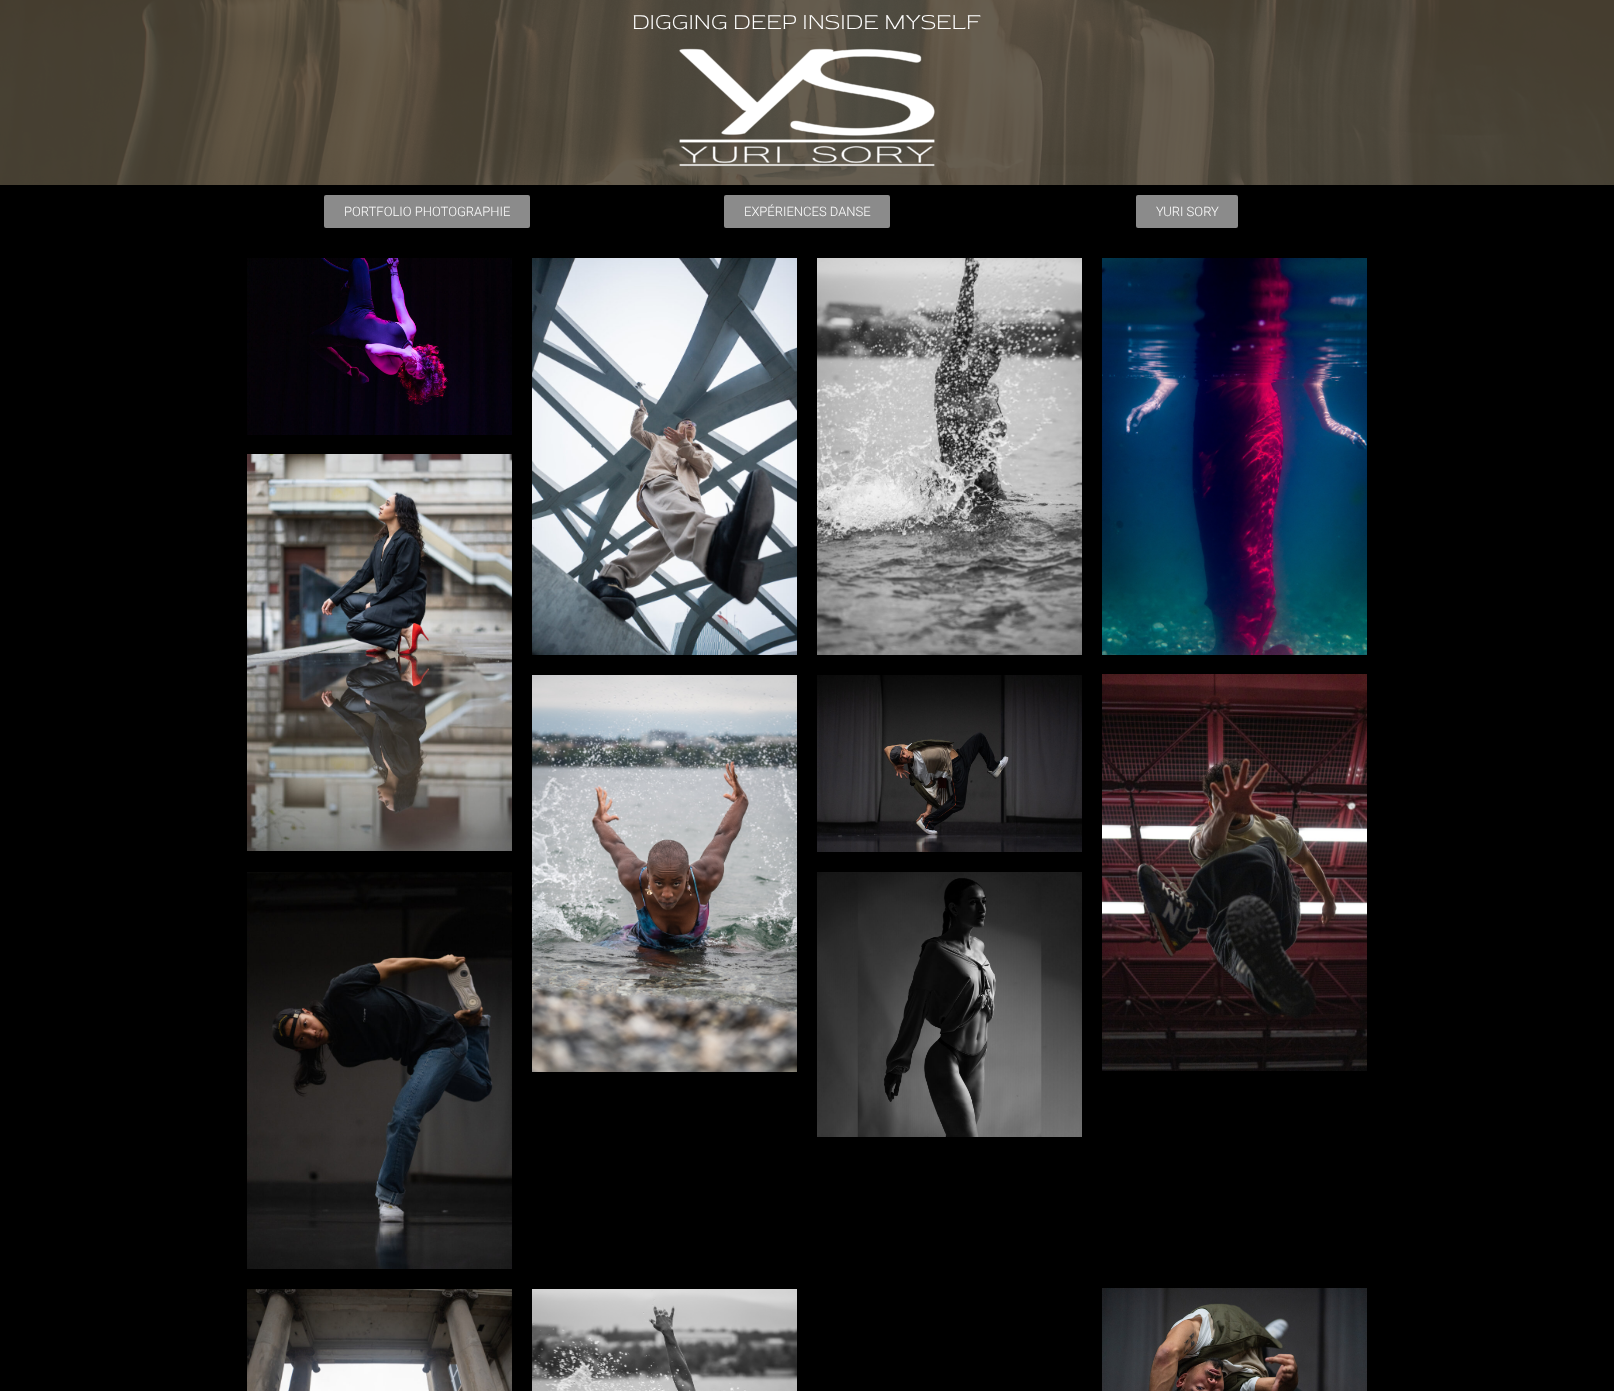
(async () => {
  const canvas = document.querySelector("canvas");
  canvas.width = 1614;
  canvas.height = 1391;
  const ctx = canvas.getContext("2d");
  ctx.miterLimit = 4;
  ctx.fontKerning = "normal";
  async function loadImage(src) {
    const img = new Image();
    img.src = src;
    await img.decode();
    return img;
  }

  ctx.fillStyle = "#000000";
  ctx.fillRect(0, 0, 1614, 1391);
  ctx.fillStyle = "#504736";
  ctx.fillRect(0, 0, 1614, 185);
  ctx.drawImage(await loadImage("img/1.png"), 0, 0, 1614, 185);
  ctx.drawImage(await loadImage("img/2.png"), 679, 48, 256, 119);
  ctx.fillStyle = "#8b8b8b";
  ctx.beginPath();
  ctx.roundRect(324, 195, 206, 33, 2);
  ctx.fill();
  ctx.beginPath();
  ctx.roundRect(724, 195, 166, 33, 2);
  ctx.fill();
  ctx.beginPath();
  ctx.roundRect(1136, 195, 102, 33, 2);
  ctx.fill();
  ctx.drawImage(await loadImage("img/3.png"), 247, 258, 265, 177);
  ctx.drawImage(await loadImage("img/4.png"), 532, 258, 265, 397);
  ctx.drawImage(await loadImage("img/5.png"), 817, 258, 265, 397);
  ctx.drawImage(await loadImage("img/6.png"), 1102, 258, 265, 397);
  ctx.drawImage(await loadImage("img/7.png"), 247, 454, 265, 397);
  ctx.drawImage(await loadImage("img/8.png"), 532, 675, 265, 397);
  ctx.drawImage(await loadImage("img/9.png"), 817, 675, 265, 177);
  ctx.drawImage(await loadImage("img/10.png"), 1102, 674, 265, 397);
  ctx.drawImage(await loadImage("img/11.png"), 247, 872, 265, 397);
  ctx.drawImage(await loadImage("img/12.png"), 817, 872, 265, 265);
  ctx.drawImage(await loadImage("img/13.png"), 247, 1289, 265, 102);
  ctx.drawImage(await loadImage("img/14.png"), 532, 1289, 265, 102);
  ctx.drawImage(await loadImage("img/15.png"), 1102, 1288, 265, 103);
  ctx.font = "300 23px Red Rose";
  ctx.fillStyle = "#ffffff";
  ctx.fillText("DIGGING DEEP INSIDE MYSELF", 632, 29);
  ctx.font = "300 13px Roboto";
  for (const [text, x, y] of [
    ["PORTFOLIO PHOTOGRAPHIE", 344, 216],
    ["EXPÉRIENCES DANSE", 744, 216],
    ["YURI SORY", 1156, 216],
  ]) {
    ctx.fillText(text, x, y);
  }
})();
